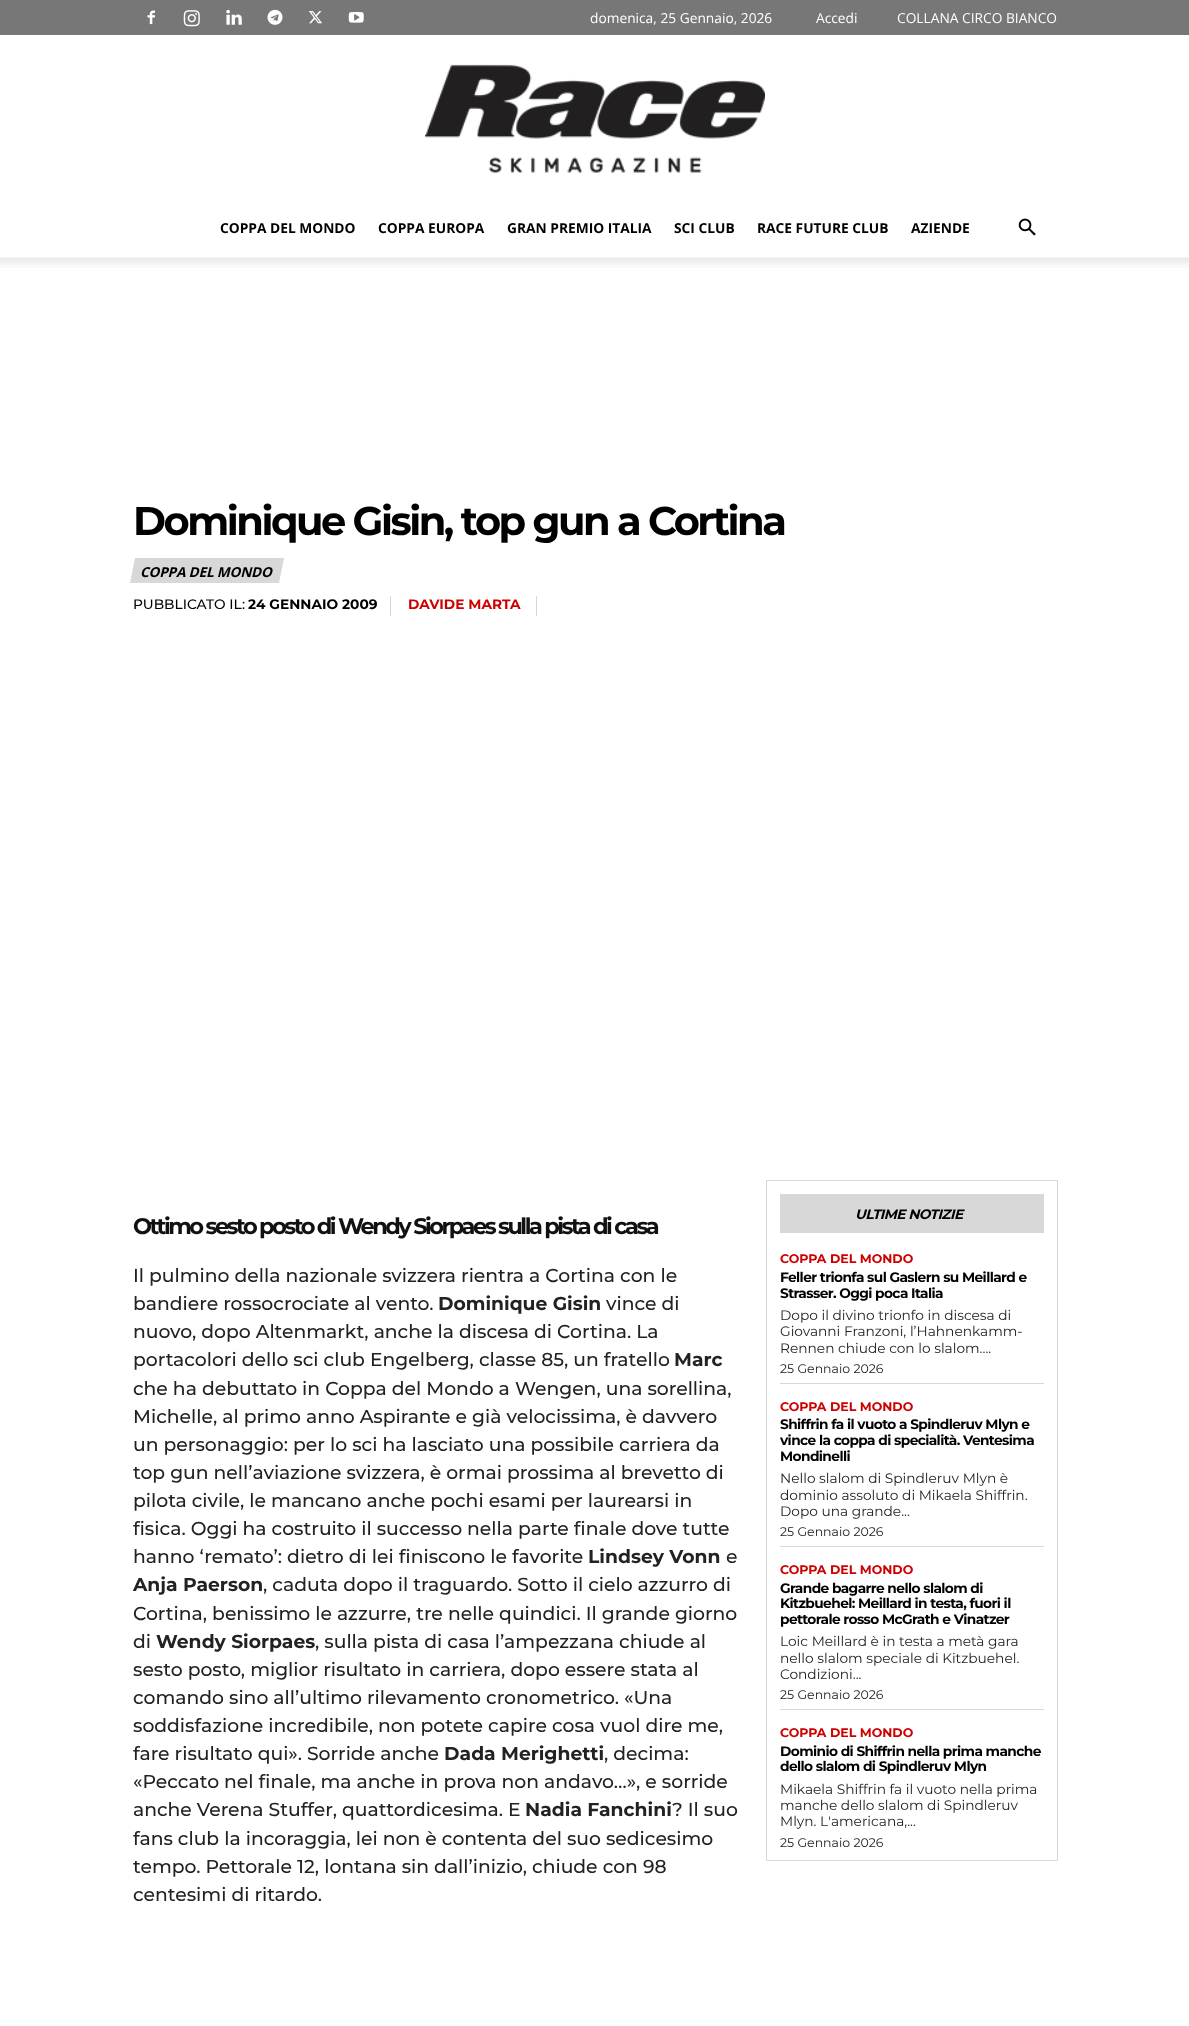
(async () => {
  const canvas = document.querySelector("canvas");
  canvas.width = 1189;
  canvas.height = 2026;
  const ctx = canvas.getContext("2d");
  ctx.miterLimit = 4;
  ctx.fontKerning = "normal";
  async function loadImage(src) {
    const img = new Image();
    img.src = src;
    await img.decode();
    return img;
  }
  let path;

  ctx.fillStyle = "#ffffff";
  ctx.fillRect(0, 0, 1189, 2026);
  ctx.fillStyle = "#777777";
  ctx.fillRect(0, 0, 1189, 35);
  ctx.drawImage(await loadImage("img/1.png"), 147, 10, 8, 15);
  ctx.drawImage(await loadImage("img/2.png"), 183, 10, 17, 17);
  ctx.drawImage(await loadImage("img/3.png"), 226, 9, 16, 16);
  ctx.drawImage(await loadImage("img/4.png"), 267, 9, 16, 16);
  ctx.drawImage(await loadImage("img/5.png"), 308, 11, 14, 13);
  ctx.drawImage(await loadImage("img/6.png"), 348, 12, 16, 11);
  ctx.drawImage(await loadImage("img/7.png"), 425, 64, 340, 109);
  ctx.drawImage(await loadImage("img/8.png"), 1018, 218, 18, 18);
  ctx.drawImage(await loadImage("img/9.png"), 0, 257, 1189, 11);
  ctx.fillStyle = "#d8d8d8";
  path = new Path2D("M135 558H284L279 583H130Z");
  ctx.fill(path);
  ctx.fillRect(390, 596, 1, 20);
  ctx.fillRect(536, 596, 1, 20);
  ctx.strokeStyle = "#d8d8d8";
  ctx.strokeRect(766.5, 1180.5, 291, 680);
  for (const [x, y, w, h, color] of [
    [780, 1194, 264, 39, "#d8d8d8"],
    [780, 1383, 264, 1, "#d8d8d8"],
    [780, 1546, 264, 1, "#d8d8d8"],
    [780, 1709, 264, 1, "#d8d8d8"],
  ]) {
    ctx.fillStyle = color;
    ctx.fillRect(x, y, w, h);
  }
  ctx.font = "13.75px Open Sans";
  ctx.fillStyle = "#ffffff";
  for (const [text, x, y] of [
    ["domenica, 25 Gennaio, 2026", 590, 23],
    ["Accedi", 816, 23],
    ["COLLANA CIRCO BIANCO", 897, 23],
  ]) {
    ctx.fillText(text, x, y);
  }
  ctx.font = "bold 13.75px Open Sans";
  ctx.fillStyle = "#000000";
  for (const [text, x, y] of [
    ["COPPA DEL MONDO", 220, 233],
    ["COPPA EUROPA", 378, 233],
    ["GRAN PREMIO ITALIA", 507, 233],
    ["SCI CLUB", 674, 233],
    ["RACE FUTURE CLUB", 757, 233],
    ["AZIENDE", 911, 233],
  ]) {
    ctx.fillText(text, x, y);
  }
  ctx.letterSpacing = "-2.5px";
  ctx.font = "bold 40px Montserrat";
  ctx.fillText("Dominique Gisin, top gun a Cortina", 133, 535);
  ctx.letterSpacing = "-0.25px";
  ctx.font = "italic bold 13.75px Open Sans";
  ctx.fillText("COPPA DEL MONDO", 140, 577);
  ctx.letterSpacing = "0px";
  ctx.font = "500 13.75px Montserrat";
  ctx.fillText("PUBBLICATO IL:", 133, 609);
  ctx.font = "bold 13.75px Montserrat";
  ctx.fillText("24 GENNAIO 2009", 248, 609);
  ctx.fillStyle = "#ce0000";
  ctx.fillText("DAVIDE MARTA", 408, 609);
  ctx.letterSpacing = "-2.5px";
  ctx.font = "bold 22.5px Montserrat";
  ctx.fillStyle = "#111111";
  ctx.fillText("Ottimo sesto posto di Wendy Siorpaes sulla pista di casa", 133, 1234);
  ctx.letterSpacing = "0px";
  ctx.font = "500 18.75px Montserrat";
  ctx.fillStyle = "#222222";
  ctx.fillText("Il pulmino della nazionale svizzera rientra a Cortina con le", 133, 1282);
  ctx.fillText("bandiere rossocrociate al vento.", 133, 1310);
  ctx.font = "bold 18.75px Montserrat";
  ctx.fillText("Dominique Gisin", 438, 1310);
  ctx.font = "500 18.75px Montserrat";
  for (const [text, x, y] of [
    ["vince di", 606, 1310],
    ["nuovo, dopo Altenmarkt, anche la discesa di Cortina. La", 133, 1338],
    ["portacolori dello sci club Engelberg, classe 85, un fratello", 133, 1366],
  ]) {
    ctx.fillText(text, x, y);
  }
  ctx.font = "bold 18.75px Montserrat";
  ctx.fillText("Marc", 674, 1366);
  ctx.font = "500 18.75px Montserrat";
  for (const [text, x, y] of [
    ["che ha debuttato in Coppa del Mondo a Wengen, una sorellina,", 133, 1395],
    ["Michelle, al primo anno Aspirante e già velocissima, è davvero", 133, 1423],
    ["un personaggio: per lo sci ha lasciato una possibile carriera da", 133, 1451],
    ["top gun nell’aviazione svizzera, è ormai prossima al brevetto di", 133, 1479],
    ["pilota civile, le mancano anche pochi esami per laurearsi in", 133, 1507],
    ["fisica. Oggi ha costruito il successo nella parte finale dove tutte", 133, 1535],
    ["hanno ‘remato’: dietro di lei finiscono le favorite", 133, 1563],
  ]) {
    ctx.fillText(text, x, y);
  }
  ctx.font = "bold 18.75px Montserrat";
  ctx.fillText("Lindsey Vonn", 588, 1563);
  ctx.font = "500 18.75px Montserrat";
  ctx.fillText("e", 726, 1563);
  ctx.font = "bold 18.75px Montserrat";
  ctx.fillText("Anja Paerson", 133, 1591);
  ctx.font = "500 18.75px Montserrat";
  for (const [text, x, y] of [
    [", caduta dopo il traguardo. Sotto il cielo azzurro di", 263, 1591],
    ["Cortina, benissimo le azzurre, tre nelle quindici. Il grande giorno", 133, 1620],
    ["di", 133, 1648],
  ]) {
    ctx.fillText(text, x, y);
  }
  ctx.font = "bold 18.75px Montserrat";
  ctx.fillText("Wendy Siorpaes", 156, 1648);
  ctx.font = "500 18.75px Montserrat";
  for (const [text, x, y] of [
    [", sulla pista di casa l’ampezzana chiude al", 315, 1648],
    ["sesto posto, miglior risultato in carriera, dopo essere stata al", 133, 1676],
    ["comando sino all’ultimo rilevamento cronometrico. «Una", 133, 1704],
    ["soddisfazione incredibile, non potete capire cosa vuol dire me,", 133, 1732],
    ["fare risultato qui». Sorride anche", 133, 1760],
  ]) {
    ctx.fillText(text, x, y);
  }
  ctx.font = "bold 18.75px Montserrat";
  ctx.fillText("Dada Merighetti", 444, 1760);
  ctx.font = "500 18.75px Montserrat";
  for (const [text, x, y] of [
    [", decima:", 604, 1760],
    ["«Peccato nel finale, ma anche in prova non andavo…», e sorride", 133, 1788],
    ["anche Verena Stuffer, quattordicesima. E", 133, 1816],
  ]) {
    ctx.fillText(text, x, y);
  }
  ctx.font = "bold 18.75px Montserrat";
  ctx.fillText("Nadia Fanchini", 525, 1816);
  ctx.font = "500 18.75px Montserrat";
  for (const [text, x, y] of [
    ["? Il suo", 672, 1816],
    ["fans club la incoraggia, lei non è contenta del suo sedicesimo", 133, 1845],
    ["tempo. Pettorale 12, lontana sin dall’inizio, chiude con 98", 133, 1873],
    ["centesimi di ritardo.", 133, 1901],
  ]) {
    ctx.fillText(text, x, y);
  }
  ctx.letterSpacing = "-0.6px";
  ctx.font = "italic bold 13.75px Montserrat";
  ctx.fillStyle = "#000000";
  ctx.fillText("ULTIME NOTIZIE", 855, 1219);
  ctx.letterSpacing = "0px";
  ctx.font = "bold 12.5px Montserrat";
  ctx.fillStyle = "#ce0000";
  ctx.fillText("COPPA DEL MONDO", 780, 1263);
  ctx.letterSpacing = "-0.6px";
  ctx.font = "bold 13.75px Montserrat";
  ctx.fillStyle = "#000000";
  ctx.fillText("Feller trionfa sul Gaslern su Meillard e", 780, 1282);
  ctx.fillText("Strasser. Oggi poca Italia", 780, 1298);
  ctx.letterSpacing = "0px";
  ctx.font = "13.75px Montserrat";
  ctx.fillStyle = "#222222";
  for (const [text, x, y] of [
    ["Dopo il divino trionfo in discesa di", 780, 1320],
    ["Giovanni Franzoni, l’Hahnenkamm-", 780, 1336],
    ["Rennen chiude con lo slalom....", 780, 1353],
  ]) {
    ctx.fillText(text, x, y);
  }
  ctx.font = "12.5px Montserrat";
  ctx.fillText("25 Gennaio 2026", 780, 1373);
  ctx.font = "bold 12.5px Montserrat";
  ctx.fillStyle = "#ce0000";
  ctx.fillText("COPPA DEL MONDO", 780, 1411);
  ctx.letterSpacing = "-0.6px";
  ctx.font = "bold 13.75px Montserrat";
  ctx.fillStyle = "#000000";
  for (const [text, x, y] of [
    ["Shiffrin fa il vuoto a Spindleruv Mlyn e", 780, 1429],
    ["vince la coppa di specialità. Ventesima", 780, 1445],
    ["Mondinelli", 780, 1461],
  ]) {
    ctx.fillText(text, x, y);
  }
  ctx.letterSpacing = "0px";
  ctx.font = "13.75px Montserrat";
  ctx.fillStyle = "#222222";
  for (const [text, x, y] of [
    ["Nello slalom di Spindleruv Mlyn è", 780, 1483],
    ["dominio assoluto di Mikaela Shiffrin.", 780, 1500],
    ["Dopo una grande...", 780, 1516],
  ]) {
    ctx.fillText(text, x, y);
  }
  ctx.font = "12.5px Montserrat";
  ctx.fillText("25 Gennaio 2026", 780, 1536);
  ctx.font = "bold 12.5px Montserrat";
  ctx.fillStyle = "#ce0000";
  ctx.fillText("COPPA DEL MONDO", 780, 1574);
  ctx.letterSpacing = "-0.6px";
  ctx.font = "bold 13.75px Montserrat";
  ctx.fillStyle = "#000000";
  for (const [text, x, y] of [
    ["Grande bagarre nello slalom di", 780, 1593],
    ["Kitzbuehel: Meillard in testa, fuori il", 780, 1608],
    ["pettorale rosso McGrath e Vinatzer", 780, 1624],
  ]) {
    ctx.fillText(text, x, y);
  }
  ctx.letterSpacing = "0px";
  ctx.font = "13.75px Montserrat";
  ctx.fillStyle = "#222222";
  for (const [text, x, y] of [
    ["Loic Meillard è in testa a metà gara", 780, 1646],
    ["nello slalom speciale di Kitzbuehel.", 780, 1663],
    ["Condizioni...", 780, 1679],
  ]) {
    ctx.fillText(text, x, y);
  }
  ctx.font = "12.5px Montserrat";
  ctx.fillText("25 Gennaio 2026", 780, 1699);
  ctx.font = "bold 12.5px Montserrat";
  ctx.fillStyle = "#ce0000";
  ctx.fillText("COPPA DEL MONDO", 780, 1737);
  ctx.letterSpacing = "-0.6px";
  ctx.font = "bold 13.75px Montserrat";
  ctx.fillStyle = "#000000";
  ctx.fillText("Dominio di Shiffrin nella prima manche", 780, 1756);
  ctx.fillText("dello slalom di Spindleruv Mlyn", 780, 1771);
  ctx.letterSpacing = "0px";
  ctx.font = "13.75px Montserrat";
  ctx.fillStyle = "#222222";
  for (const [text, x, y] of [
    ["Mikaela Shiffrin fa il vuoto nella prima", 780, 1794],
    ["manche dello slalom di Spindleruv", 780, 1810],
    ["Mlyn. L'americana,...", 780, 1826],
  ]) {
    ctx.fillText(text, x, y);
  }
  ctx.font = "12.5px Montserrat";
  ctx.fillText("25 Gennaio 2026", 780, 1847);
})();
